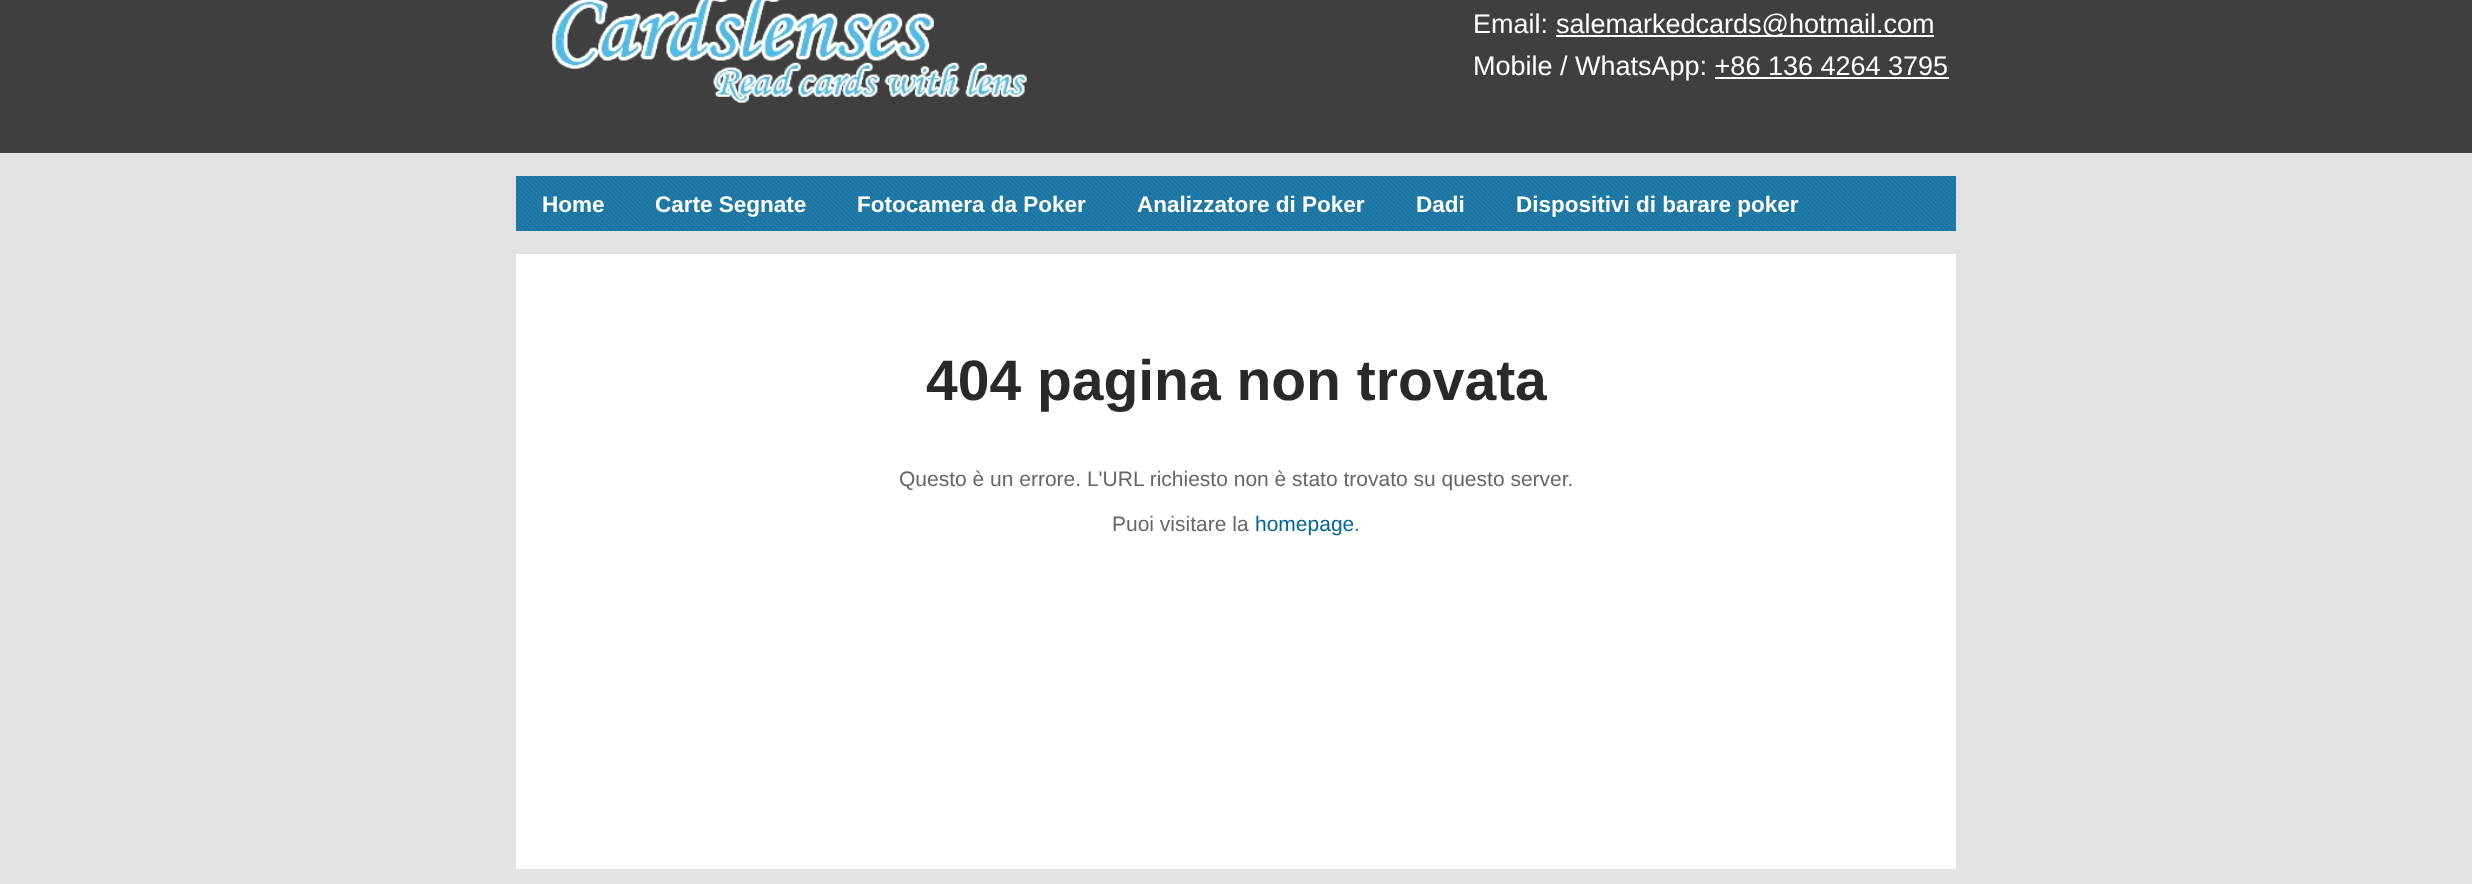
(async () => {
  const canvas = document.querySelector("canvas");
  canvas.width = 2472;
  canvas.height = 884;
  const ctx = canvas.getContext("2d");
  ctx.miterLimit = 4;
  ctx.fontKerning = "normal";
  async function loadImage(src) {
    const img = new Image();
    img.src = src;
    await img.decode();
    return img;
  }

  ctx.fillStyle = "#e2e2e2";
  ctx.fillRect(0, 0, 2472, 884);
  ctx.fillStyle = "#3f3f3f";
  ctx.fillRect(0, 0, 2472, 153);
  ctx.drawImage(await loadImage("img/1.png"), 551, 0, 476, 103);
  for (const [x, y, w, h, color] of [
    [1556, 35, 378, 2, "#ffffff"],
    [1715, 77, 234, 2, "#ffffff"],
    [516, 176, 1440, 55, "#006699"],
  ]) {
    ctx.fillStyle = color;
    ctx.fillRect(x, y, w, h);
  }
  ctx.drawImage(await loadImage("img/2.png"), 516, 176, 1440, 55);
  ctx.fillStyle = "#ffffff";
  ctx.fillRect(516, 254, 1440, 615);
  ctx.font = "27px Liberation Sans";
  for (const [text, x, y] of [
    ["Email:", 1473, 33],
    ["salemarkedcards@hotmail.com", 1556, 33],
    ["Mobile / WhatsApp: +86 136 4264 3795", 1473, 75],
  ]) {
    ctx.fillText(text, x, y);
  }
  ctx.font = "bold 22.5px Liberation Sans";
  for (const [text, x, y] of [
    ["Home", 542, 212],
    ["Carte Segnate", 655, 212],
    ["Fotocamera da Poker", 857, 212],
    ["Analizzatore di Poker", 1137, 212],
    ["Dadi", 1416, 212],
    ["Dispositivi di barare poker", 1516, 212],
  ]) {
    ctx.fillText(text, x, y);
  }
  ctx.font = "bold 57px Liberation Sans";
  ctx.fillStyle = "#292929";
  ctx.fillText("404 pagina non trovata", 926, 400);
  ctx.font = "21px Liberation Sans";
  ctx.fillStyle = "#666666";
  ctx.fillText("Questo è un errore. L'URL richiesto non è stato trovato su questo server.", 899, 486);
  ctx.fillText("Puoi visitare la", 1112, 531);
  ctx.fillStyle = "#006699";
  ctx.fillText("homepage", 1255, 531);
  ctx.fillStyle = "#666666";
  ctx.fillText(".", 1354, 531);
})();
